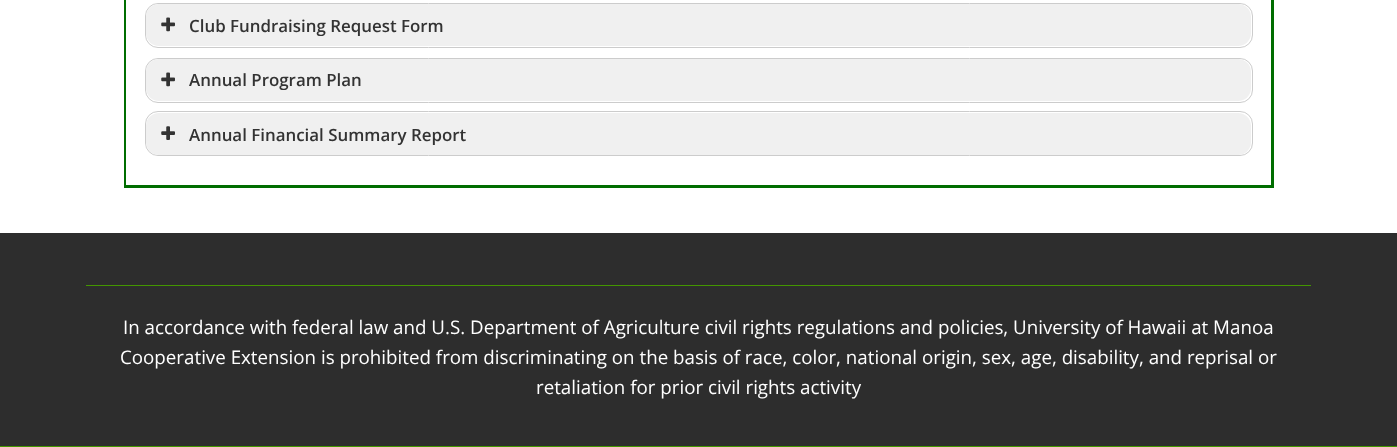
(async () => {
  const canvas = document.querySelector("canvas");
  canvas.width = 1397;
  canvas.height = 447;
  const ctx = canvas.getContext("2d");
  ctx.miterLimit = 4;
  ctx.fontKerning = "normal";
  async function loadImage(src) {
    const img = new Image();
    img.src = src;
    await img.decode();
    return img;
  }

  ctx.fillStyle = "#ffffff";
  ctx.fillRect(0, 0, 1397, 447);
  ctx.beginPath();
  ctx.rect(125.5, -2.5, 1147, 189);
  ctx.strokeStyle = "#006d00";
  ctx.lineWidth = 3;
  ctx.stroke();
  ctx.fillRect(126, 0, 1, 185);
  ctx.beginPath();
  ctx.roundRect(145.5, 3.5, 1107, 44, 12.5);
  ctx.strokeStyle = "#cccccc";
  ctx.lineWidth = 1;
  ctx.stroke();
  ctx.fillStyle = "#f0f0f0";
  ctx.beginPath();
  ctx.roundRect(146, 4, 1105, 42, 13);
  ctx.fill();
  ctx.drawImage(await loadImage("img/1.png"), 161, 17, 14, 15);
  ctx.beginPath();
  ctx.roundRect(145.5, 58.5, 1107, 44, 12.5);
  ctx.stroke();
  ctx.beginPath();
  ctx.roundRect(146, 59, 1105, 42, 13);
  ctx.fill();
  ctx.drawImage(await loadImage("img/1.png"), 161, 72, 14, 15);
  ctx.beginPath();
  ctx.roundRect(145.5, 111.5, 1107, 44, 12.5);
  ctx.stroke();
  ctx.beginPath();
  ctx.roundRect(146, 113, 1105, 42, 13);
  ctx.fill();
  ctx.drawImage(await loadImage("img/2.png"), 161, 126, 14, 14);
  for (const [x, y, w, h, color] of [
    [0, 233, 1397, 213, "#2d2d2d"],
    [0, 446, 1397, 1, "#439600"],
    [86, 285, 1225, 1, "#439600"],
  ]) {
    ctx.fillStyle = color;
    ctx.fillRect(x, y, w, h);
  }
  ctx.font = "600 16.9px Open Sans";
  ctx.fillStyle = "#333333";
  for (const [text, x, y] of [
    ["Club Fundraising Request Form", 189, 32],
    ["Annual Program Plan", 189, 86],
    ["Annual Financial Summary Report", 189, 141],
  ]) {
    ctx.fillText(text, x, y);
  }
  ctx.font = "18.75px Open Sans";
  ctx.fillStyle = "#ffffff";
  for (const [text, x, y] of [
    ["In accordance with federal law and U.S. Department of Agriculture civil rights regulations and policies, University of Hawaii at Manoa", 123, 334],
    ["Cooperative Extension is prohibited from discriminating on the basis of race, color, national origin, sex, age, disability, and reprisal or", 120, 364],
    ["retaliation for prior civil rights activity", 536, 394],
  ]) {
    ctx.fillText(text, x, y);
  }
})();
